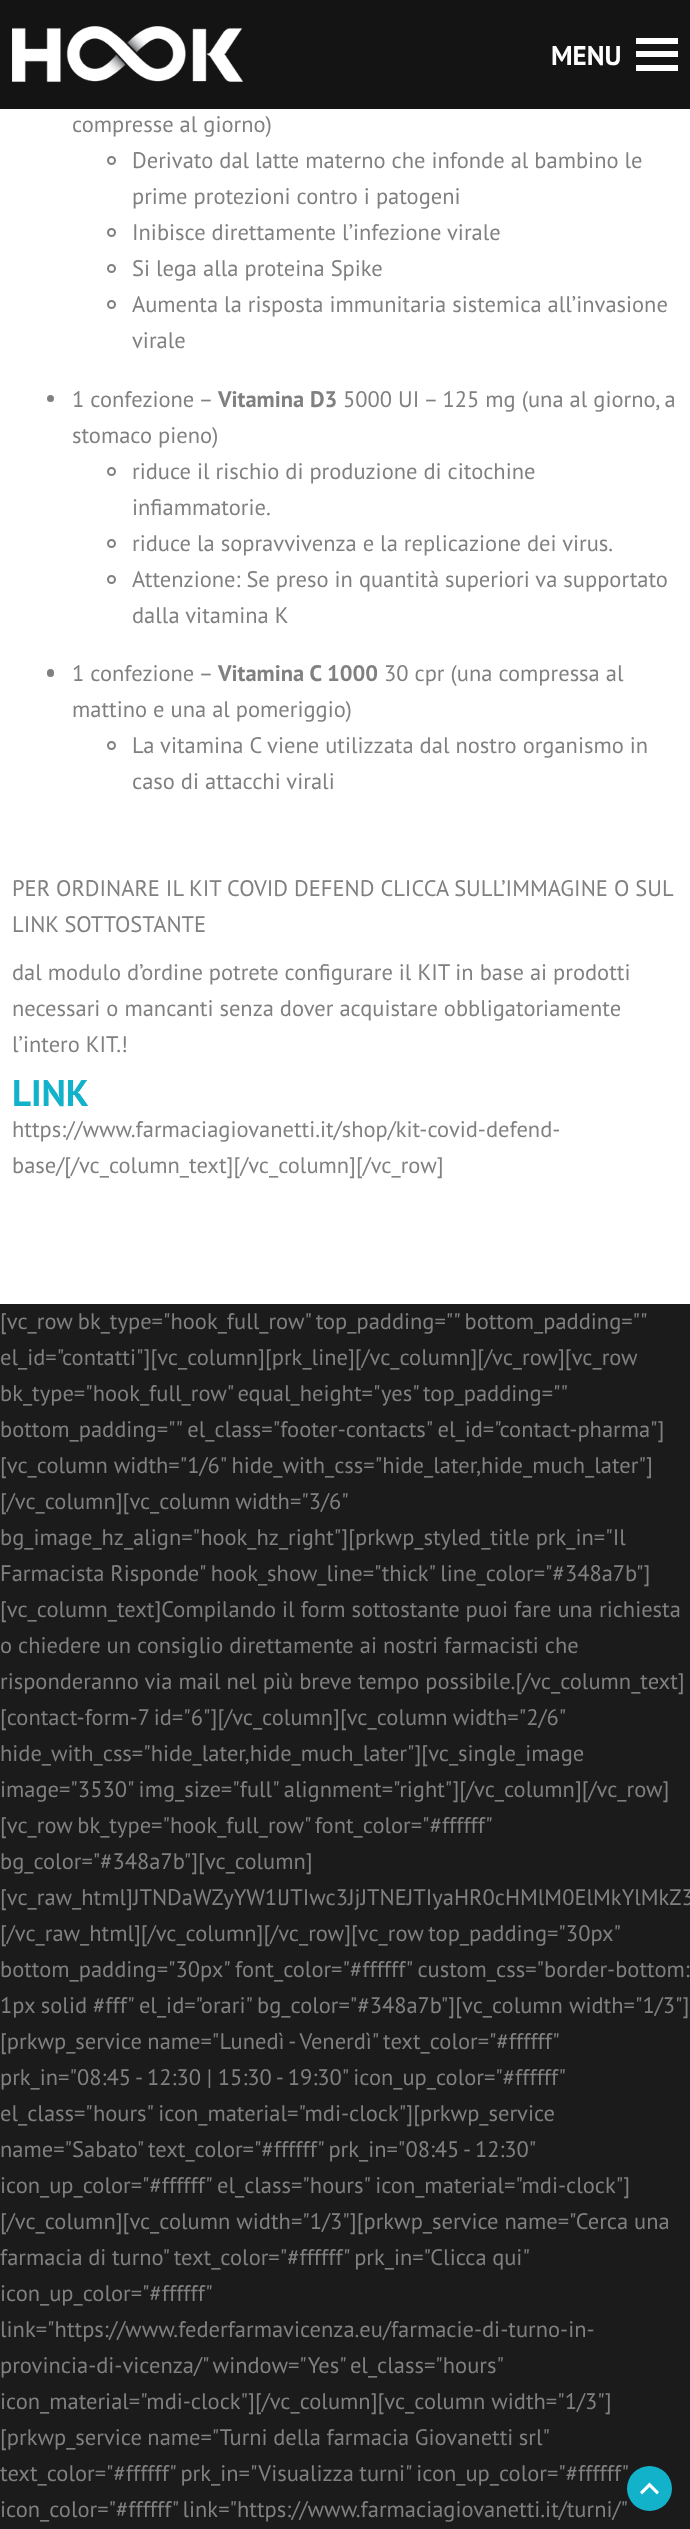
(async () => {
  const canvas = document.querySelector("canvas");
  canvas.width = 690;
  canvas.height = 2529;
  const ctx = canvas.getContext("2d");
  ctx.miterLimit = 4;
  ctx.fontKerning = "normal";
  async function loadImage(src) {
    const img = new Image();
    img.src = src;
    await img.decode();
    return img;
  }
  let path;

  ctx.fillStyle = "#ffffff";
  ctx.fillRect(0, 0, 690, 2529);
  ctx.fillStyle = "#141414";
  ctx.fillRect(0, 0, 690, 109);
  ctx.drawImage(await loadImage("img/1.png"), 12, 26, 231, 56);
  for (const [x, y, w, h, color] of [
    [636, 38, 42, 6, "#ffffff"],
    [636, 51, 42, 6, "#ffffff"],
    [636, 65, 42, 6, "#ffffff"],
  ]) {
    ctx.fillStyle = color;
    ctx.fillRect(x, y, w, h);
  }
  ctx.beginPath();
  ctx.arc(111.5, 160.5, 3.5, 0, Math.PI * 2);
  ctx.strokeStyle = "#808080";
  ctx.lineWidth = 2;
  ctx.stroke();
  ctx.beginPath();
  ctx.arc(111.5, 232.5, 3.5, 0, Math.PI * 2);
  ctx.stroke();
  ctx.beginPath();
  ctx.arc(111.5, 268.5, 3.5, 0, Math.PI * 2);
  ctx.stroke();
  ctx.beginPath();
  ctx.arc(111.5, 304.5, 3.5, 0, Math.PI * 2);
  ctx.stroke();
  ctx.fillStyle = "#808080";
  ctx.beginPath();
  ctx.arc(50.5, 398.5, 3.5, 0, Math.PI * 2);
  ctx.fill();
  ctx.beginPath();
  ctx.arc(111.5, 471.5, 3.5, 0, Math.PI * 2);
  ctx.stroke();
  ctx.beginPath();
  ctx.arc(111.5, 543.5, 3.5, 0, Math.PI * 2);
  ctx.stroke();
  ctx.beginPath();
  ctx.arc(111.5, 579.5, 3.5, 0, Math.PI * 2);
  ctx.stroke();
  ctx.beginPath();
  ctx.roundRect(47, 669, 7, 8, 3.5);
  ctx.fill();
  ctx.beginPath();
  ctx.arc(111.5, 745.5, 3.5, 0, Math.PI * 2);
  ctx.stroke();
  ctx.fillStyle = "#1b1b1b";
  ctx.fillRect(0, 1304, 690, 1225);
  ctx.font = "bold 27px PT Sans";
  ctx.fillStyle = "#ffffff";
  ctx.fillText("MENU", 551, 65);
  ctx.font = "22.5px PT Sans";
  ctx.fillStyle = "#808080";
  for (const [text, x, y] of [
    ["compresse al giorno)", 72, 132],
    ["Derivato dal latte materno che infonde al bambino le", 132, 168],
    ["prime protezioni contro i patogeni", 132, 204],
    ["Inibisce direttamente l’infezione virale", 132, 240],
    ["Si lega alla proteina Spike", 132, 276],
    ["Aumenta la risposta immunitaria sistemica all’invasione", 132, 312],
    ["virale", 132, 348],
    ["1 confezione –", 72, 407],
  ]) {
    ctx.fillText(text, x, y);
  }
  ctx.font = "bold 22.5px PT Sans";
  ctx.fillText("Vitamina", 218, 407);
  ctx.fillText("D3", 310, 407);
  ctx.font = "22.5px PT Sans";
  for (const [text, x, y] of [
    ["5000 UI – 125 mg (una al giorno, a", 343, 407],
    ["stomaco pieno)", 72, 443],
    ["riduce il rischio di produzione di citochine", 132, 479],
    ["infiammatorie.", 132, 515],
    ["riduce la sopravvivenza e la replicazione dei virus.", 132, 551],
    ["Attenzione: Se preso in quantità superiori va supportato", 132, 587],
    ["dalla vitamina K", 132, 623],
    ["1 confezione –", 72, 681],
  ]) {
    ctx.fillText(text, x, y);
  }
  ctx.font = "bold 22.5px PT Sans";
  ctx.fillText("Vitamina C 1000", 218, 681);
  ctx.font = "22.5px PT Sans";
  for (const [text, x, y] of [
    ["30 cpr (una compressa al", 384, 681],
    ["mattino e una al pomeriggio)", 72, 717],
    ["La vitamina C viene utilizzata dal nostro organismo in", 132, 753],
    ["caso di attacchi virali", 132, 789],
    ["PER ORDINARE IL KIT COVID DEFEND CLICCA SULL’IMMAGINE O SUL", 12, 896],
    ["LINK SOTTOSTANTE", 12, 932],
    ["dal modulo d’ordine potrete configurare il KIT in base ai prodotti", 12, 980],
    ["necessari o mancanti senza dover acquistare obbligatoriamente", 12, 1016],
    ["l’intero KIT.!", 12, 1052],
  ]) {
    ctx.fillText(text, x, y);
  }
  ctx.font = "bold 37px PT Sans";
  ctx.fillStyle = "#12b2cb";
  ctx.fillText("LINK", 12, 1106);
  ctx.font = "22.5px PT Sans";
  ctx.fillStyle = "#808080";
  ctx.fillText("https://www.farmaciagiovanetti.it/shop/kit-covid-defend-", 12, 1137);
  ctx.fillText("base/[/vc_column_text][/vc_column][/vc_row]", 12, 1173);
  ctx.wordSpacing = "-0.5px";
  ctx.fillText("[vc_row bk_type=\"hook_full_row\" top_padding=\"\" bottom_padding=\"\"", 0, 1329);
  ctx.wordSpacing = "0px";
  ctx.fillText("el_id=\"contatti\"][vc_column][prk_line][/vc_column][/vc_row][vc_row", 0, 1365);
  ctx.wordSpacing = "-1px";
  ctx.fillText("bk_type=\"hook_full_row\" equal_height=\"yes\" top_padding=\"\"", 0, 1401);
  ctx.wordSpacing = "0px";
  ctx.fillText("bottom_padding=\"\" el_class=\"footer-contacts\" el_id=\"contact-pharma\"]", 0, 1437);
  ctx.fillText("[vc_column width=\"1/6\" hide_with_css=\"hide_later,hide_much_later\"]", 0, 1473);
  ctx.wordSpacing = "-1px";
  ctx.fillText("[/vc_column][vc_column width=\"3/6\"", 0, 1509);
  ctx.wordSpacing = "0px";
  for (const [text, x, y] of [
    ["bg_image_hz_align=\"hook_hz_right\"][prkwp_styled_title prk_in=\"Il", 0, 1545],
    ["Farmacista Risponde\" hook_show_line=\"thick\" line_color=\"#348a7b\"]", 0, 1581],
    ["[vc_column_text]Compilando il form sottostante puoi fare una richiesta", 0, 1617],
    ["o chiedere un consiglio direttamente ai nostri farmacisti che", 0, 1653],
    ["risponderanno via mail nel più breve tempo possibile.[/vc_column_text]", 0, 1689],
  ]) {
    ctx.fillText(text, x, y);
  }
  ctx.wordSpacing = "-1px";
  ctx.fillText("[contact-form-7 id=\"6\"][/vc_column][vc_column width=\"2/6\"", 0, 1725);
  ctx.wordSpacing = "0px";
  ctx.fillText("hide_with_css=\"hide_later,hide_much_later\"][vc_single_image", 0, 1761);
  ctx.fillText("image=\"3530\" img_size=\"full\" alignment=\"right\"][/vc_column][/vc_row]", 0, 1797);
  ctx.wordSpacing = "-1px";
  ctx.fillText("[vc_row bk_type=\"hook_full_row\" font_color=\"#ffffff\"", 0, 1833);
  ctx.wordSpacing = "0px";
  ctx.fillText("bg_color=\"#348a7b\"][vc_column]", 0, 1869);
  ctx.fillText("[vc_raw_html]JTNDaWZyYW1lJTIwc3JjJTNEJTIyaHR0cHMlM0ElMkYlMkZ3", 0, 1905);
  ctx.wordSpacing = "-1px";
  ctx.fillText("[/vc_raw_html][/vc_column][/vc_row][vc_row top_padding=\"30px\"", 0, 1941);
  ctx.wordSpacing = "0px";
  ctx.fillText("bottom_padding=\"30px\" font_color=\"#ffffff\" custom_css=\"border-bottom:", 0, 1977);
  ctx.fillText("1px solid #fff\" el_id=\"orari\" bg_color=\"#348a7b\"][vc_column width=\"1/3\"]", 0, 2013);
  ctx.wordSpacing = "-0.5px";
  ctx.fillText("[prkwp_service name=\"Lunedì - Venerdì\" text_color=\"#ffffff\"", 0, 2049);
  ctx.wordSpacing = "-0.25px";
  ctx.fillText("prk_in=\"08:45 - 12:30 | 15:30 - 19:30\" icon_up_color=\"#ffffff\"", 0, 2085);
  ctx.wordSpacing = "0px";
  ctx.fillText("el_class=\"hours\" icon_material=\"mdi-clock\"][prkwp_service", 0, 2121);
  ctx.wordSpacing = "-0.5px";
  ctx.fillText("name=\"Sabato\" text_color=\"#ffffff\" prk_in=\"08:45 - 12:30\"", 0, 2157);
  ctx.wordSpacing = "0px";
  ctx.fillText("icon_up_color=\"#ffffff\" el_class=\"hours\" icon_material=\"mdi-clock\"]", 0, 2193);
  ctx.fillText("[/vc_column][vc_column width=\"1/3\"][prkwp_service name=\"Cerca una", 0, 2229);
  ctx.wordSpacing = "-0.5px";
  ctx.fillText("farmacia di turno\" text_color=\"#ffffff\" prk_in=\"Clicca qui\"", 0, 2265);
  ctx.wordSpacing = "0px";
  ctx.fillText("icon_up_color=\"#ffffff\"", 0, 2301);
  ctx.fillText("link=\"https://www.federfarmavicenza.eu/farmacie-di-turno-in-", 0, 2337);
  ctx.wordSpacing = "-1px";
  ctx.fillText("provincia-di-vicenza/\" window=\"Yes\" el_class=\"hours\"", 0, 2373);
  ctx.wordSpacing = "0px";
  ctx.fillText("icon_material=\"mdi-clock\"][/vc_column][vc_column width=\"1/3\"]", 0, 2409);
  ctx.wordSpacing = "-0.5px";
  ctx.fillText("[prkwp_service name=\"Turni della farmacia Giovanetti srl\"", 0, 2445);
  ctx.fillText("text_color=\"#ffffff\" prk_in=\"Visualizza turni\" icon_up_color=\"#ffffff\"", 0, 2481);
  ctx.wordSpacing = "-1px";
  ctx.fillText("icon_color=\"#ffffff\" link=\"https://www.farmaciagiovanetti.it/turni/\"", 0, 2517);
  ctx.fillStyle = "#12b2cb";
  ctx.beginPath();
  ctx.arc(649.5, 2488.5, 22.5, 0, Math.PI * 2);
  ctx.fill();
  ctx.fillStyle = "#ffffff";
  path = new Path2D("M642 2494.5L649.5 2487L657 2494.5L659 2492L649.5 2482.5L640 2492Z");
  ctx.fill(path);
})();
